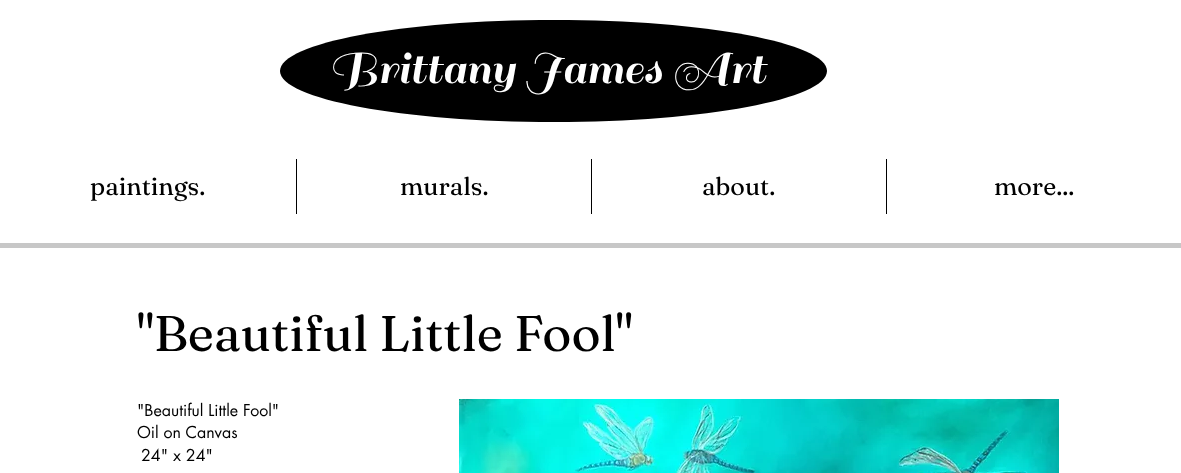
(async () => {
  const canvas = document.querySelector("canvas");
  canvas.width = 1181;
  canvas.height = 473;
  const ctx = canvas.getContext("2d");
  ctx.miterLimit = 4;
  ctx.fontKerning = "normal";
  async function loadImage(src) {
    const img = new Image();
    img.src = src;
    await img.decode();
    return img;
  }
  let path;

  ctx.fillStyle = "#ffffff";
  ctx.fillRect(0, 0, 1181, 473);
  ctx.fillStyle = "#000000";
  path = new Path2D("M827 71C827 99 705 122 554 122C402 122 280 99 280 71C280 43 402 20 554 20C705 20 827 43 827 71Z");
  ctx.fill(path);
  for (const [x, y, w, h, color] of [
    [296, 159, 1, 55, "#000000"],
    [591, 159, 1, 55, "#000000"],
    [886, 159, 1, 55, "#000000"],
    [0, 243, 1181, 5, "#c7c7c7"],
  ]) {
    ctx.fillStyle = color;
    ctx.fillRect(x, y, w, h);
  }
  ctx.drawImage(await loadImage("img/1.png"), 459, 399, 600, 74);
  ctx.font = "50px Sail";
  ctx.fillStyle = "#ffffff";
  ctx.fillText("Brittany James Art", 329, 83);
  ctx.font = "25px Fraunces";
  ctx.fillStyle = "#000000";
  for (const [text, x, y] of [
    ["paintings.", 90, 195],
    ["murals.", 400, 195],
    ["about.", 702, 195],
    ["more...", 994, 195],
  ]) {
    ctx.fillText(text, x, y);
  }
  ctx.font = "50px Fraunces";
  ctx.fillText("\"Beautiful Little Fool\"", 137, 351);
  ctx.font = "16px futura";
  for (const [text, x, y] of [
    ["\"Beautiful Little Fool\"", 137, 416],
    ["Oil on Canvas", 137, 438],
    ["24\" x 24\"", 141, 461],
  ]) {
    ctx.fillText(text, x, y);
  }
})();
